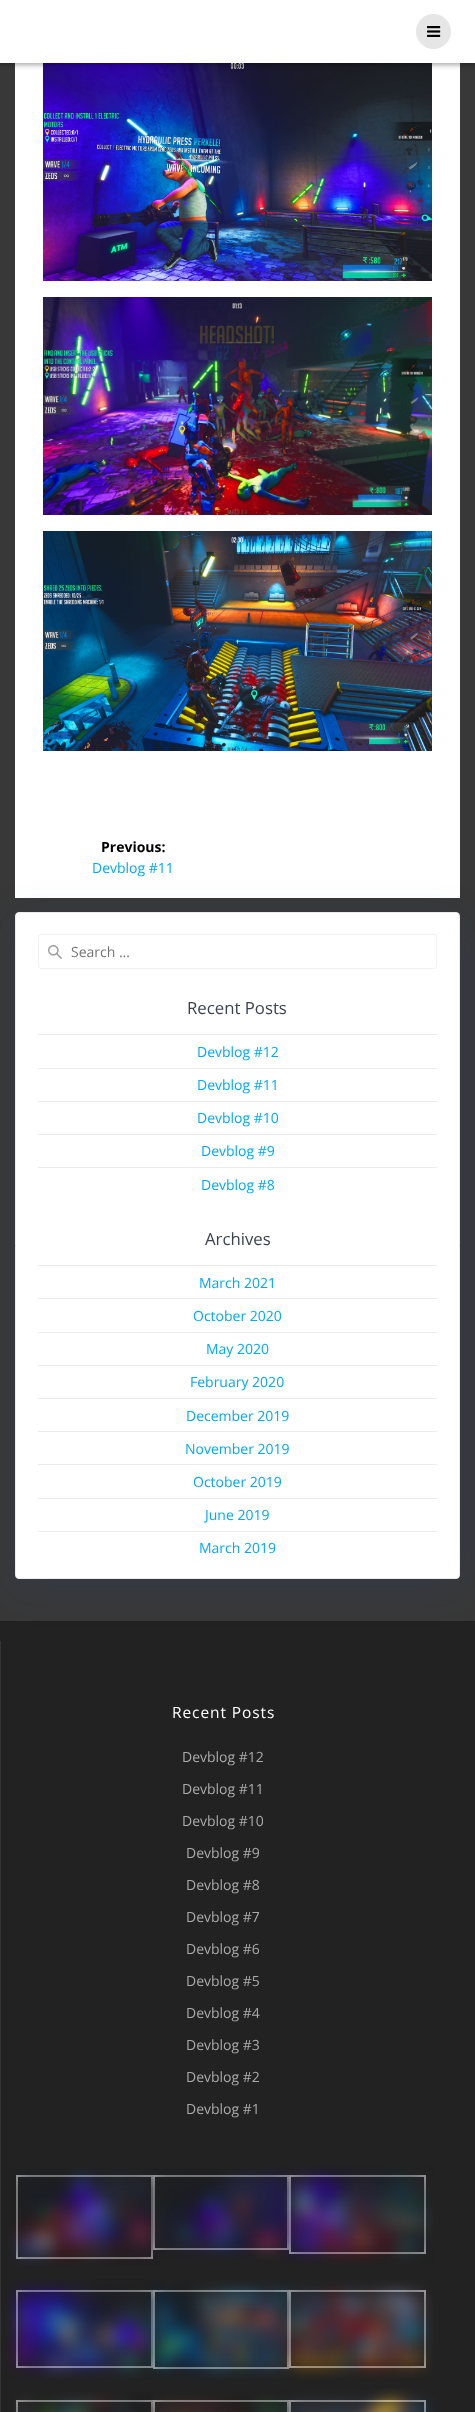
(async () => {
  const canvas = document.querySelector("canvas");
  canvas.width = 475;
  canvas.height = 2412;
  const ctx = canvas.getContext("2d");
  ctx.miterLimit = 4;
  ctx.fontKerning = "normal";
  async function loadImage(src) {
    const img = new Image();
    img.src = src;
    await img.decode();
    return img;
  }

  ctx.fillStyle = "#383838";
  ctx.fillRect(0, 0, 475, 2412);
  ctx.fillStyle = "#ffffff";
  ctx.fillRect(15, 63, 445, 835);
  ctx.drawImage(await loadImage("img/2.png"), 43, 63, 389, 218);
  ctx.fillStyle = "rgba(0, 0, 0, 0.33)";
  ctx.filter = "blur(2.5px)";
  ctx.beginPath();
  ctx.rect(-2, -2, 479, 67);
  ctx.fill();
  ctx.filter = "none";
  ctx.fillStyle = "#ffffff";
  ctx.fillRect(0, 0, 475, 63);
  ctx.fillStyle = "#e6e6e6";
  ctx.beginPath();
  ctx.arc(433.5, 31.5, 17.5, 0, Math.PI * 2);
  ctx.fill();
  ctx.drawImage(await loadImage("img/1.png"), 427, 26, 14, 11);
  ctx.drawImage(await loadImage("img/3.png"), 43, 297, 389, 218);
  ctx.drawImage(await loadImage("img/4.png"), 43, 531, 389, 220);
  ctx.fillStyle = "#222222";
  ctx.fillRect(0, 1621, 475, 791);
  ctx.fillStyle = "#353535";
  ctx.fillRect(0, 1641, 1, 771);
  ctx.fillStyle = "rgba(35, 69, 152, 0.15)";
  ctx.filter = "blur(19.5px)";
  ctx.beginPath();
  ctx.roundRect(15, 920, 445, 667, 4);
  ctx.fill();
  ctx.filter = "none";
  ctx.fillStyle = "#ffffff";
  ctx.beginPath();
  ctx.roundRect(15.5, 912.5, 444, 666, 3.5);
  ctx.fill();
  ctx.strokeStyle = "#ececec";
  ctx.stroke();
  ctx.drawImage(await loadImage("img/5.png"), 48, 945, 14, 14);
  ctx.beginPath();
  ctx.roundRect(38.5, 934.5, 398, 34, 2.5);
  ctx.strokeStyle = "#f1f1f1";
  ctx.stroke();
  for (const [x, y, w, h, color] of [
    [38, 1034, 399, 1, "#ececec"],
    [38, 1068, 399, 1, "#ececec"],
    [38, 1101, 399, 1, "#ececec"],
    [38, 1134, 399, 1, "#ececec"],
    [38, 1167, 399, 1, "#ececec"],
    [38, 1265, 399, 1, "#ececec"],
    [38, 1298, 399, 1, "#ececec"],
    [38, 1332, 399, 1, "#ececec"],
    [38, 1365, 399, 1, "#ececec"],
    [38, 1398, 399, 1, "#ececec"],
    [38, 1431, 399, 1, "#ececec"],
    [38, 1464, 399, 1, "#ececec"],
    [38, 1498, 399, 1, "#ececec"],
    [38, 1531, 399, 1, "#ececec"],
  ]) {
    ctx.fillStyle = color;
    ctx.fillRect(x, y, w, h);
  }
  ctx.strokeStyle = "#a4a4a4";
  ctx.lineWidth = 2;
  ctx.strokeRect(17, 2176, 135, 82);
  ctx.drawImage(await loadImage("img/6.png"), 8, 2168, 153, 98);
  ctx.strokeStyle = "rgba(207, 207, 207, 0.75)";
  ctx.strokeRect(154, 2176, 134, 73);
  ctx.drawImage(await loadImage("img/7.png"), 145, 2168, 152, 92);
  ctx.strokeRect(290, 2176, 135, 77);
  ctx.drawImage(await loadImage("img/8.png"), 280, 2165, 154, 99);
  ctx.strokeStyle = "#a4a4a4";
  ctx.strokeRect(17, 2291, 135, 76);
  ctx.drawImage(await loadImage("img/9.png"), 5, 2279, 158, 101);
  ctx.strokeStyle = "rgba(207, 207, 207, 0.75)";
  ctx.strokeRect(154, 2291, 134, 77);
  ctx.drawImage(await loadImage("img/10.png"), 144, 2280, 154, 100);
  ctx.strokeRect(290, 2291, 135, 76);
  ctx.drawImage(await loadImage("img/11.png"), 279, 2280, 155, 100);
  ctx.strokeStyle = "#a4a4a4";
  ctx.strokeRect(17, 2401, 135, 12);
  ctx.drawImage(await loadImage("img/12.png"), 13, 2392, 140, 20);
  ctx.strokeRect(154, 2401, 134, 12);
  ctx.drawImage(await loadImage("img/13.png"), 146, 2395, 147, 17);
  ctx.strokeStyle = "rgba(207, 207, 207, 0.75)";
  ctx.strokeRect(290, 2401, 135, 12);
  ctx.drawImage(await loadImage("img/14.png"), 282, 2388, 153, 24);
  ctx.font = "bold 14px Open Sans";
  ctx.fillStyle = "#000000";
  ctx.fillText("Previous:", 101, 852);
  ctx.font = "14px Open Sans";
  ctx.fillStyle = "#03a9f4";
  ctx.fillText("Devblog #11", 92, 873);
  ctx.fillStyle = "#757575";
  ctx.fillText("Search …", 71, 957);
  ctx.font = "16.75px Open Sans";
  ctx.fillStyle = "#3c424f";
  ctx.fillText("Recent Posts", 187, 1014);
  ctx.font = "14px Open Sans";
  ctx.fillStyle = "#03a9f4";
  for (const [text, x, y] of [
    ["Devblog #12", 197, 1057],
    ["Devblog #11", 197, 1090],
    ["Devblog #10", 197, 1123],
    ["Devblog #9", 201, 1156],
    ["Devblog #8", 201, 1190],
  ]) {
    ctx.fillText(text, x, y);
  }
  ctx.font = "16.75px Open Sans";
  ctx.fillStyle = "#3c424f";
  ctx.fillText("Archives", 205, 1245);
  ctx.font = "14px Open Sans";
  ctx.fillStyle = "#03a9f4";
  for (const [text, x, y] of [
    ["March 2021", 199, 1288],
    ["October 2020", 193, 1321],
    ["May 2020", 206, 1354],
    ["February 2020", 190, 1387],
    ["December 2019", 186, 1421],
    ["November 2019", 185, 1454],
    ["October 2019", 193, 1487],
    ["June 2019", 205, 1520],
    ["March 2019", 199, 1553],
  ]) {
    ctx.fillText(text, x, y);
  }
  ctx.letterSpacing = "0.9px";
  ctx.font = "15.5px Open Sans";
  ctx.fillStyle = "#ffffff";
  ctx.fillText("Recent Posts", 172, 1718);
  ctx.letterSpacing = "0px";
  ctx.font = "14px Open Sans";
  ctx.fillStyle = "#aaaaaa";
  for (const [text, x, y] of [
    ["Devblog #12", 182, 1762],
    ["Devblog #11", 182, 1794],
    ["Devblog #10", 182, 1826],
    ["Devblog #9", 186, 1858],
    ["Devblog #8", 186, 1890],
    ["Devblog #7", 186, 1922],
    ["Devblog #6", 186, 1954],
    ["Devblog #5", 186, 1986],
    ["Devblog #4", 186, 2018],
    ["Devblog #3", 186, 2050],
    ["Devblog #2", 186, 2082],
    ["Devblog #1", 186, 2114],
  ]) {
    ctx.fillText(text, x, y);
  }
})();
